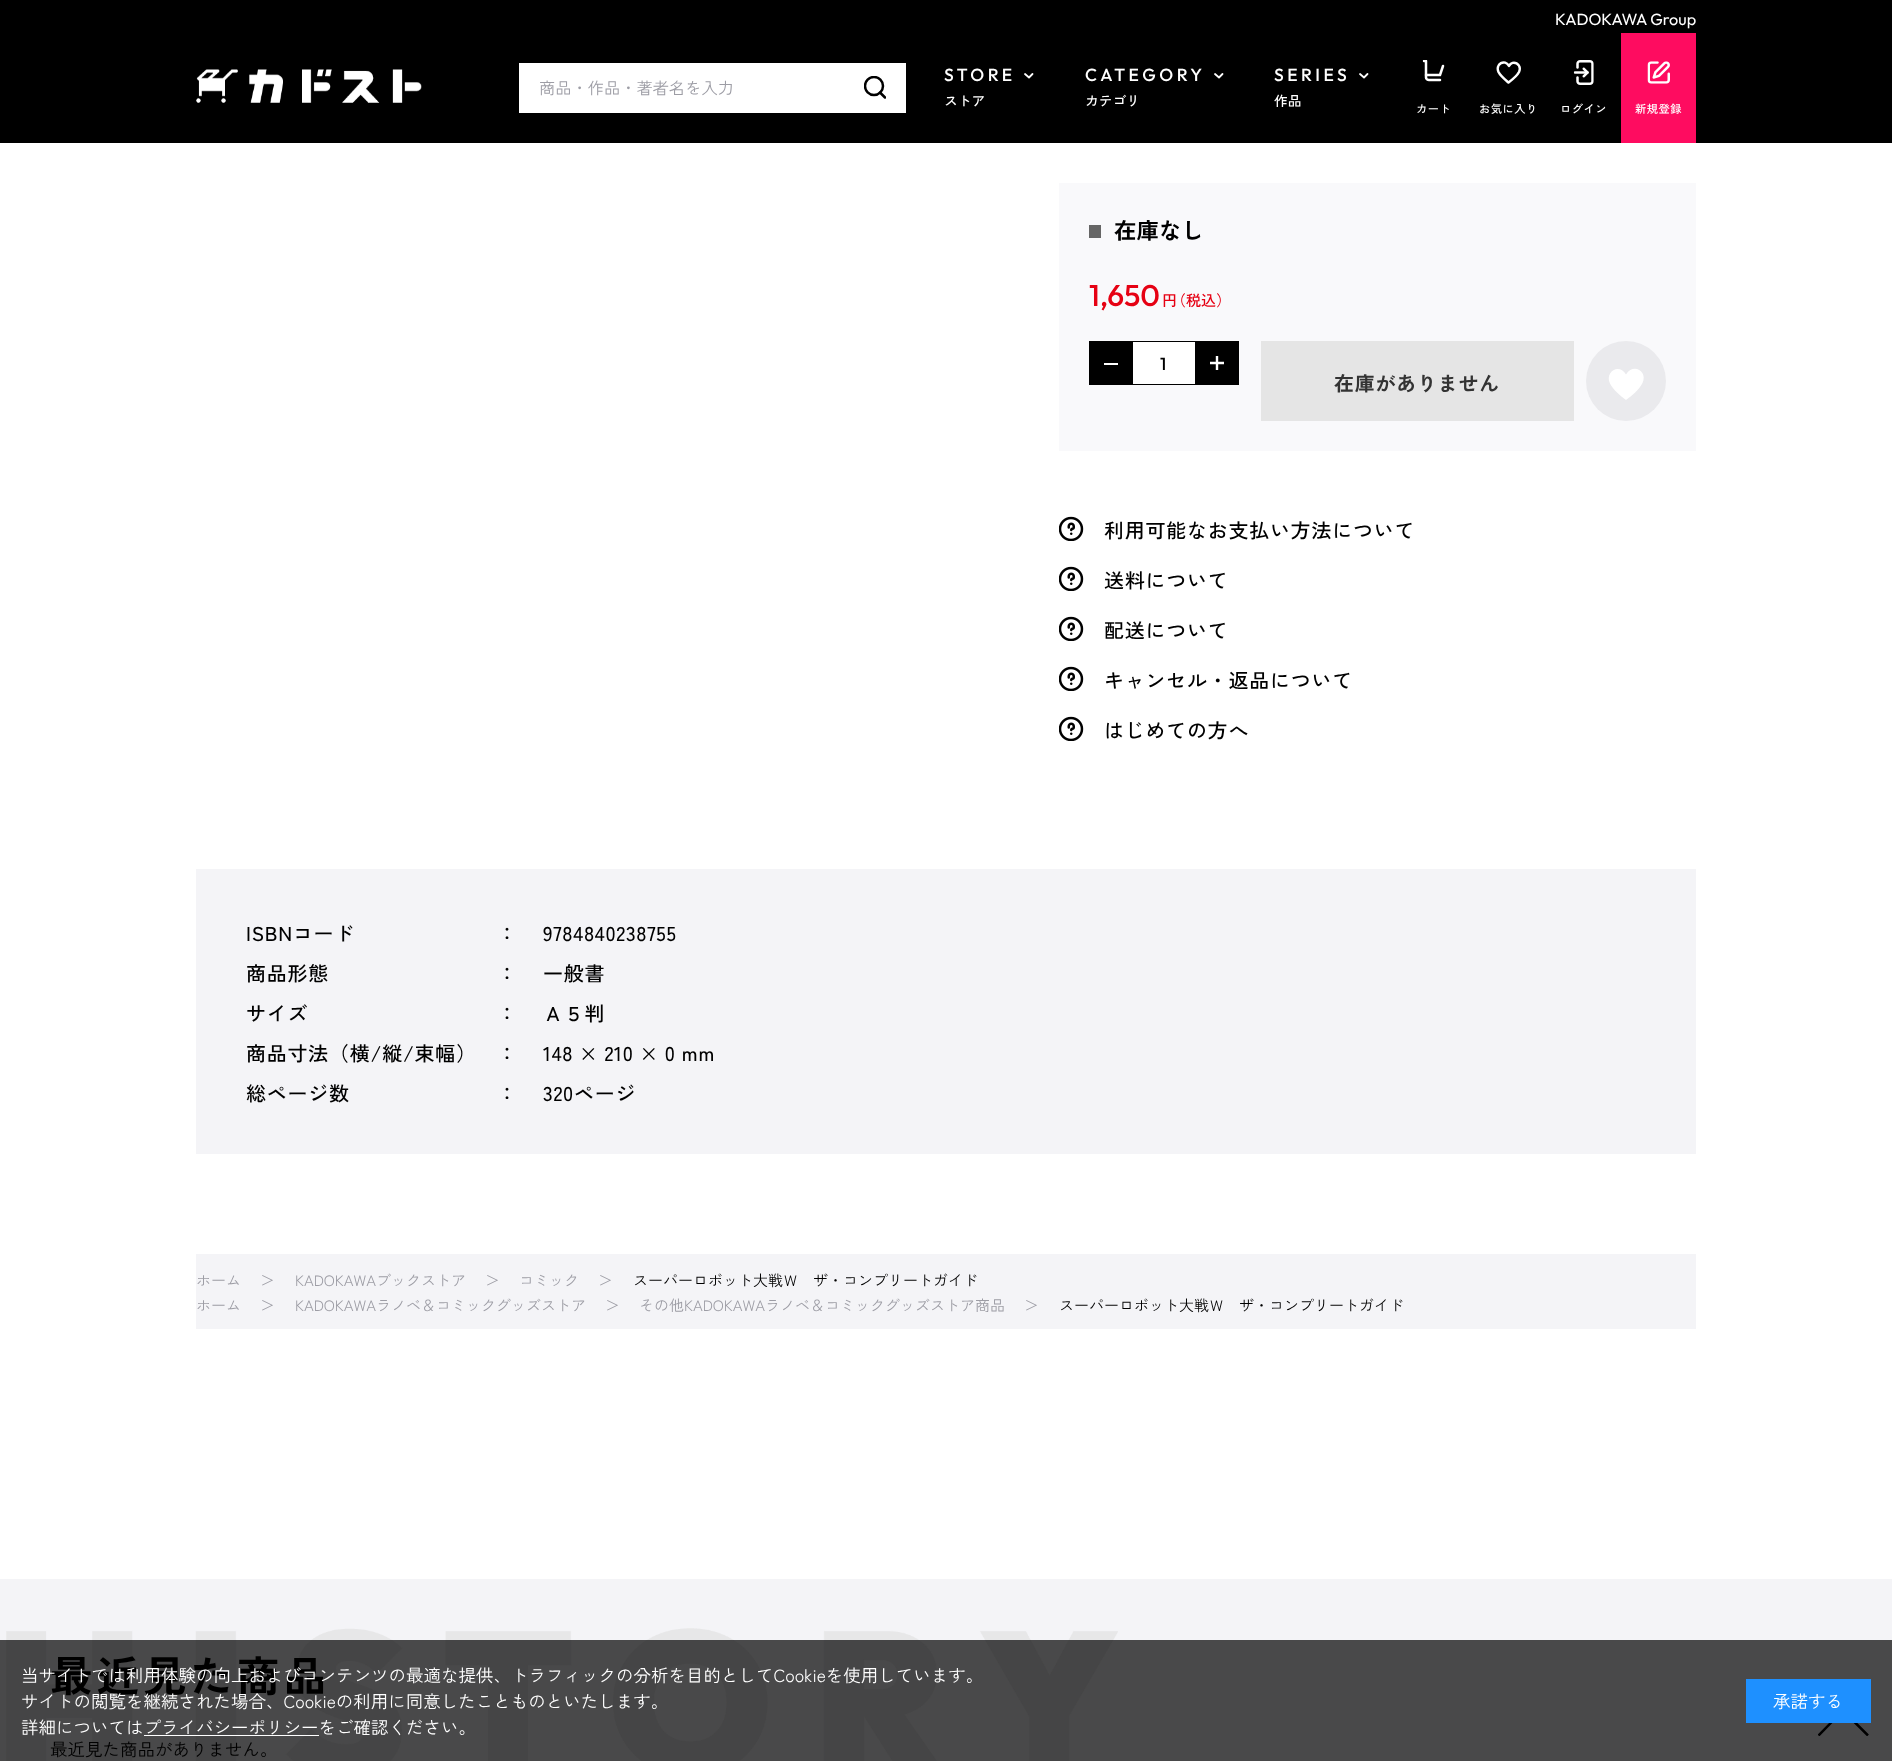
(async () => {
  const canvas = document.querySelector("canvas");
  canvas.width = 1892;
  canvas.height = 1761;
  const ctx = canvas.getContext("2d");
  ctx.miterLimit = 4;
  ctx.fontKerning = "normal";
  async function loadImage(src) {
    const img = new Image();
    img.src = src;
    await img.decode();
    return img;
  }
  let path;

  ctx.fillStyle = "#ffffff";
  ctx.fillRect(0, 0, 1892, 1761);
  ctx.fillStyle = "#000000";
  ctx.fillRect(0, 0, 1892, 143);
  ctx.drawImage(await loadImage("img/1.png"), 196, 69, 226, 34);
  ctx.fillStyle = "#ffffff";
  ctx.fillRect(519, 63, 387, 50);
  ctx.save();
  path = new Path2D("M864 76H886V99H864Z");
  ctx.clip(path);
  ctx.beginPath();
  ctx.arc(874, 86, 9, 0, Math.PI * 2);
  ctx.strokeStyle = "#000000";
  ctx.lineWidth = 2.5;
  ctx.stroke();
  path = new Path2D("M880 92.5L885 97.5");
  ctx.lineCap = "round";
  ctx.lineJoin = "round";
  ctx.stroke(path);
  ctx.restore();
  path = new Path2D("M1025 74L1029 77.5L1032.5 74");
  ctx.strokeStyle = "#fefefe";
  ctx.lineWidth = 1.8;
  ctx.lineCap = "round";
  ctx.lineJoin = "round";
  ctx.stroke(path);
  path = new Path2D("M1215 74L1219 77.5L1222.5 74");
  ctx.stroke(path);
  path = new Path2D("M1360 74L1364 77.5L1367.5 74");
  ctx.stroke(path);
  path = new Path2D("M1426 75H1440L1443 66");
  ctx.strokeStyle = "#ffffff";
  ctx.lineWidth = 2.5;
  ctx.stroke(path);
  ctx.save();
  path = new Path2D("M1422.5 60H1444.5V85H1422.5Z");
  ctx.clip(path);
  path = new Path2D("M1424 61H1426V77.5C1426 79 1427.5 80 1429 80H1440");
  ctx.stroke(path);
  ctx.restore();
  ctx.save();
  path = new Path2D("M1496 61H1521V84H1496Z");
  ctx.clip(path);
  path = new Path2D("M1509 66C1512.5 59 1522.5 64 1519 72C1517 76 1512.5 79.5 1508.5 82.5C1505 79.5 1500.5 76 1498.5 72C1495 64 1505 58.5 1509 66Z");
  ctx.stroke(path);
  ctx.restore();
  ctx.drawImage(await loadImage("img/2.png"), 1573, 60, 21, 25);
  ctx.fillStyle = "#fe0c60";
  ctx.fillRect(1621, 33, 75, 110);
  ctx.drawImage(await loadImage("img/3.png"), 1647, 61, 23, 23);
  for (const [x, y, w, h, color] of [
    [1059, 183, 637, 268, "#f9f9fb"],
    [1089, 225, 12, 13, "#666666"],
    [1089, 341, 44, 44, "#000000"],
    [1104, 363, 14, 2, "#ffffff"],
    [1133, 342, 62, 42, "#ffffff"],
    [1133, 341, 62, 1, "#000000"],
    [1133, 384, 62, 1, "#000000"],
    [1195, 341, 44, 44, "#000000"],
  ]) {
    ctx.fillStyle = color;
    ctx.fillRect(x, y, w, h);
  }
  path = new Path2D("M1217 356V370M1224 363H1210");
  ctx.lineWidth = 2.4;
  ctx.lineCap = "butt";
  ctx.stroke(path);
  ctx.fillStyle = "#eaeaed";
  ctx.beginPath();
  ctx.arc(1626, 381, 40, 0, Math.PI * 2);
  ctx.fill();
  ctx.fillStyle = "#ffffff";
  path = new Path2D("M1626 374.5C1633.5 362.5 1648 371.5 1642.5 383C1639 390 1632 395.5 1626 400C1620 395.5 1613.5 390 1610 383.5C1604.5 372 1619 362.5 1626 374.5Z");
  ctx.fill(path);
  ctx.fillStyle = "#e5e5e5";
  ctx.fillRect(1261, 341, 313, 80);
  ctx.drawImage(await loadImage("img/4.png"), 1059, 516, 25, 25);
  ctx.drawImage(await loadImage("img/4.png"), 1059, 566, 25, 25);
  ctx.drawImage(await loadImage("img/4.png"), 1059, 616, 25, 25);
  ctx.drawImage(await loadImage("img/4.png"), 1059, 666, 25, 25);
  ctx.drawImage(await loadImage("img/4.png"), 1059, 716, 25, 25);
  for (const [x, y, w, h, color] of [
    [196, 869, 1500, 285, "#f4f4f7"],
    [196, 1254, 1500, 75, "#f4f4f7"],
    [0, 1579, 1892, 61, "#f4f4f7"],
    [0, 1640, 1892, 121, "#49494a"],
  ]) {
    ctx.fillStyle = color;
    ctx.fillRect(x, y, w, h);
  }
  ctx.drawImage(await loadImage("img/5.png"), 6, 1628, 1112, 133);
  ctx.save();
  ctx.beginPath();
  ctx.rect(1818, 1709, 51, 27);
  ctx.clip();
  path = new Path2D("M1868 1735.5L1843 1710.5L1818.5 1735.5");
  ctx.strokeStyle = "#000000";
  ctx.lineWidth = 2.5;
  ctx.lineJoin = "miter";
  ctx.stroke(path);
  ctx.restore();
  ctx.fillStyle = "#ffffff";
  ctx.fillRect(144, 1735, 175, 1);
  ctx.fillStyle = "#1e90ff";
  ctx.fillRect(1746, 1679, 125, 44);
  ctx.font = "16.25px Outfit";
  ctx.fillStyle = "#ffffff";
  ctx.fillText("KADOKAWA Group", 1555, 25);
  ctx.font = "16.25px Zen Kaku Gothic New";
  ctx.fillStyle = "#9d9da5";
  ctx.fillText("商品・作品・著者名を入力", 539, 94);
  ctx.letterSpacing = "3.5px";
  ctx.font = "500 17.5px Outfit";
  ctx.fillStyle = "#ffffff";
  ctx.fillText("STORE", 944, 81);
  ctx.letterSpacing = "0px";
  ctx.font = "500 13.75px Zen Kaku Gothic New";
  ctx.fillText("ストア", 944, 106);
  ctx.letterSpacing = "3.5px";
  ctx.font = "500 17.5px Outfit";
  ctx.fillText("CATEGORY", 1085, 81);
  ctx.letterSpacing = "0px";
  ctx.font = "500 13.75px Zen Kaku Gothic New";
  ctx.fillText("カテゴリ", 1085, 106);
  ctx.letterSpacing = "3.5px";
  ctx.font = "500 17.5px Outfit";
  ctx.fillText("SERIES", 1274, 81);
  ctx.letterSpacing = "0px";
  ctx.font = "500 13.75px Zen Kaku Gothic New";
  ctx.fillText("作品", 1274, 106);
  ctx.letterSpacing = "0.5px";
  ctx.font = "500 11.25px Zen Kaku Gothic New";
  for (const [text, x, y] of [
    ["カート", 1416, 113],
    ["お気に入り", 1479, 113],
    ["ログイン", 1560, 113],
    ["新規登録", 1635, 113],
  ]) {
    ctx.fillText(text, x, y);
  }
  ctx.letterSpacing = "0px";
  ctx.font = "bold 22.5px Zen Kaku Gothic New";
  ctx.fillStyle = "#000000";
  ctx.fillText("在庫なし", 1114, 239);
  ctx.font = "500 30px Outfit";
  ctx.fillStyle = "#e60113";
  ctx.fillText("1,650", 1089, 306);
  ctx.font = "500 15px Zen Kaku Gothic New";
  ctx.fillText("円", 1162, 306);
  ctx.fillText("（税込）", 1171, 306);
  ctx.letterSpacing = "1px";
  ctx.font = "500 17.5px Outfit";
  ctx.fillStyle = "#000000";
  ctx.fillText("1", 1160, 370);
  ctx.letterSpacing = "0.75px";
  ctx.font = "bold 20px Zen Kaku Gothic New";
  ctx.fillStyle = "#333333";
  ctx.fillText("在庫がありません", 1334, 391);
  ctx.font = "500 20px Zen Kaku Gothic New";
  ctx.fillStyle = "#000000";
  for (const [text, x, y] of [
    ["利用可能なお支払い方法について", 1104, 538],
    ["送料について", 1104, 588],
    ["配送について", 1104, 638],
    ["キャンセル・返品について", 1104, 688],
    ["はじめての方へ", 1104, 738],
    ["ISBNコード", 246, 941],
    ["：", 497, 941],
    ["9784840238755", 543, 941],
    ["商品形態", 246, 981],
    ["：", 497, 981],
    ["一般書", 543, 981],
    ["サイズ", 246, 1021],
    ["：", 497, 1021],
    ["Ａ５判", 543, 1021],
    ["商品寸法（横/縦/束幅）", 246, 1061],
    ["：", 497, 1061],
    ["148 × 210 × 0 mm", 543, 1061],
    ["総ページ数", 246, 1101],
    ["：", 497, 1101],
    ["320ページ", 543, 1101],
  ]) {
    ctx.fillText(text, x, y);
  }
  ctx.letterSpacing = "0px";
  ctx.font = "15px Zen Kaku Gothic New";
  ctx.fillStyle = "#9d9da5";
  for (const [text, x, y] of [
    ["ホーム", 196, 1286],
    ["＞", 260, 1286],
    ["KADOKAWAブックストア", 295, 1286],
    ["＞", 485, 1286],
    ["コミック", 519, 1286],
    ["＞", 598, 1286],
  ]) {
    ctx.fillText(text, x, y);
  }
  ctx.fillStyle = "#000000";
  ctx.fillText("スーパーロボット大戦Ｗ　ザ・コンプリートガイド", 633, 1286);
  ctx.fillStyle = "#9d9da5";
  for (const [text, x, y] of [
    ["ホーム", 196, 1311],
    ["＞", 260, 1311],
    ["KADOKAWAラノベ＆コミックグッズストア", 295, 1311],
    ["＞", 605, 1311],
    ["その他KADOKAWAラノベ＆コミックグッズストア商品", 639, 1311],
    ["＞", 1024, 1311],
  ]) {
    ctx.fillText(text, x, y);
  }
  ctx.fillStyle = "#000000";
  ctx.fillText("スーパーロボット大戦Ｗ　ザ・コンプリートガイド", 1059, 1311);
  ctx.letterSpacing = "4.25px";
  ctx.font = "bold 42.5px Zen Kaku Gothic New";
  ctx.fillText("最近見た商品", 50, 1692);
  ctx.letterSpacing = "0px";
  ctx.font = "17.5px Zen Kaku Gothic New";
  ctx.fillText("最近見た商品がありません。", 50, 1756);
  ctx.fillStyle = "#ffffff";
  for (const [text, x, y] of [
    ["当サイトでは利用体験の向上およびコンテンツの最適な提供、トラフィックの分析を目的としてCookieを使用しています。", 21, 1682],
    ["サイトの閲覧を継続された場合、Cookieの利用に同意したことものといたします。", 21, 1708],
    ["詳細についてはプライバシーポリシーをご確認ください。", 21, 1734],
    ["承諾する", 1773, 1708],
  ]) {
    ctx.fillText(text, x, y);
  }
})();
